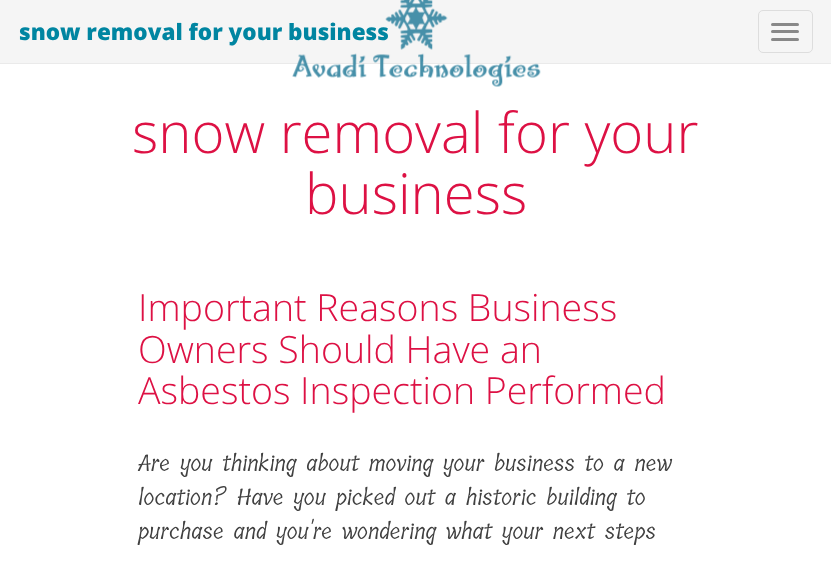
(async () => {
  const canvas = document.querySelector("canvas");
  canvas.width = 831;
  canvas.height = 565;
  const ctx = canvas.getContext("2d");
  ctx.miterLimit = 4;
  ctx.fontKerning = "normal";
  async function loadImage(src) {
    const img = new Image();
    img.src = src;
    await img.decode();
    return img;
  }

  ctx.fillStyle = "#ffffff";
  ctx.fillRect(0, 0, 831, 565);
  ctx.fillStyle = "#f5f5f5";
  ctx.fillRect(0, 0, 831, 63);
  ctx.fillStyle = "#eaeaea";
  ctx.fillRect(0, 63, 831, 1);
  ctx.beginPath();
  ctx.roundRect(758.5, 10.5, 54, 42, 4.5);
  ctx.strokeStyle = "#dddddd";
  ctx.stroke();
  ctx.fillStyle = "#888888";
  ctx.beginPath();
  ctx.roundRect(771, 23, 28, 3, 1.5);
  ctx.fill();
  ctx.beginPath();
  ctx.roundRect(771, 30, 28, 3, 1.5);
  ctx.fill();
  ctx.beginPath();
  ctx.roundRect(771, 38, 28, 3, 1.5);
  ctx.fill();
  ctx.font = "800 22.5px Open Sans";
  ctx.fillStyle = "#0085a1";
  ctx.fillText("snow removal for your business", 19, 40);
  ctx.drawImage(await loadImage("img/1.png"), 292, 0, 249, 87);
  ctx.font = "300 56.25px Open Sans";
  ctx.fillStyle = "#dd1144";
  ctx.fillText("snow removal for your", 132, 153);
  ctx.fillText("business", 305, 214);
  ctx.font = "300 37.5px Open Sans";
  for (const [text, x, y] of [
    ["Important Reasons Business", 138, 321],
    ["Owners Should Have an", 138, 363],
    ["Asbestos Inspection Performed", 138, 404],
  ]) {
    ctx.fillText(text, x, y);
  }
  ctx.font = "22.5px Tillana";
  ctx.fillStyle = "#404040";
  for (const [text, x, y] of [
    ["Are you thinking about moving your business to a new", 138, 471],
    ["location? Have you picked out a historic building to", 138, 505],
    ["purchase and you're wondering what your next steps", 138, 539],
  ]) {
    ctx.fillText(text, x, y);
  }
})();
